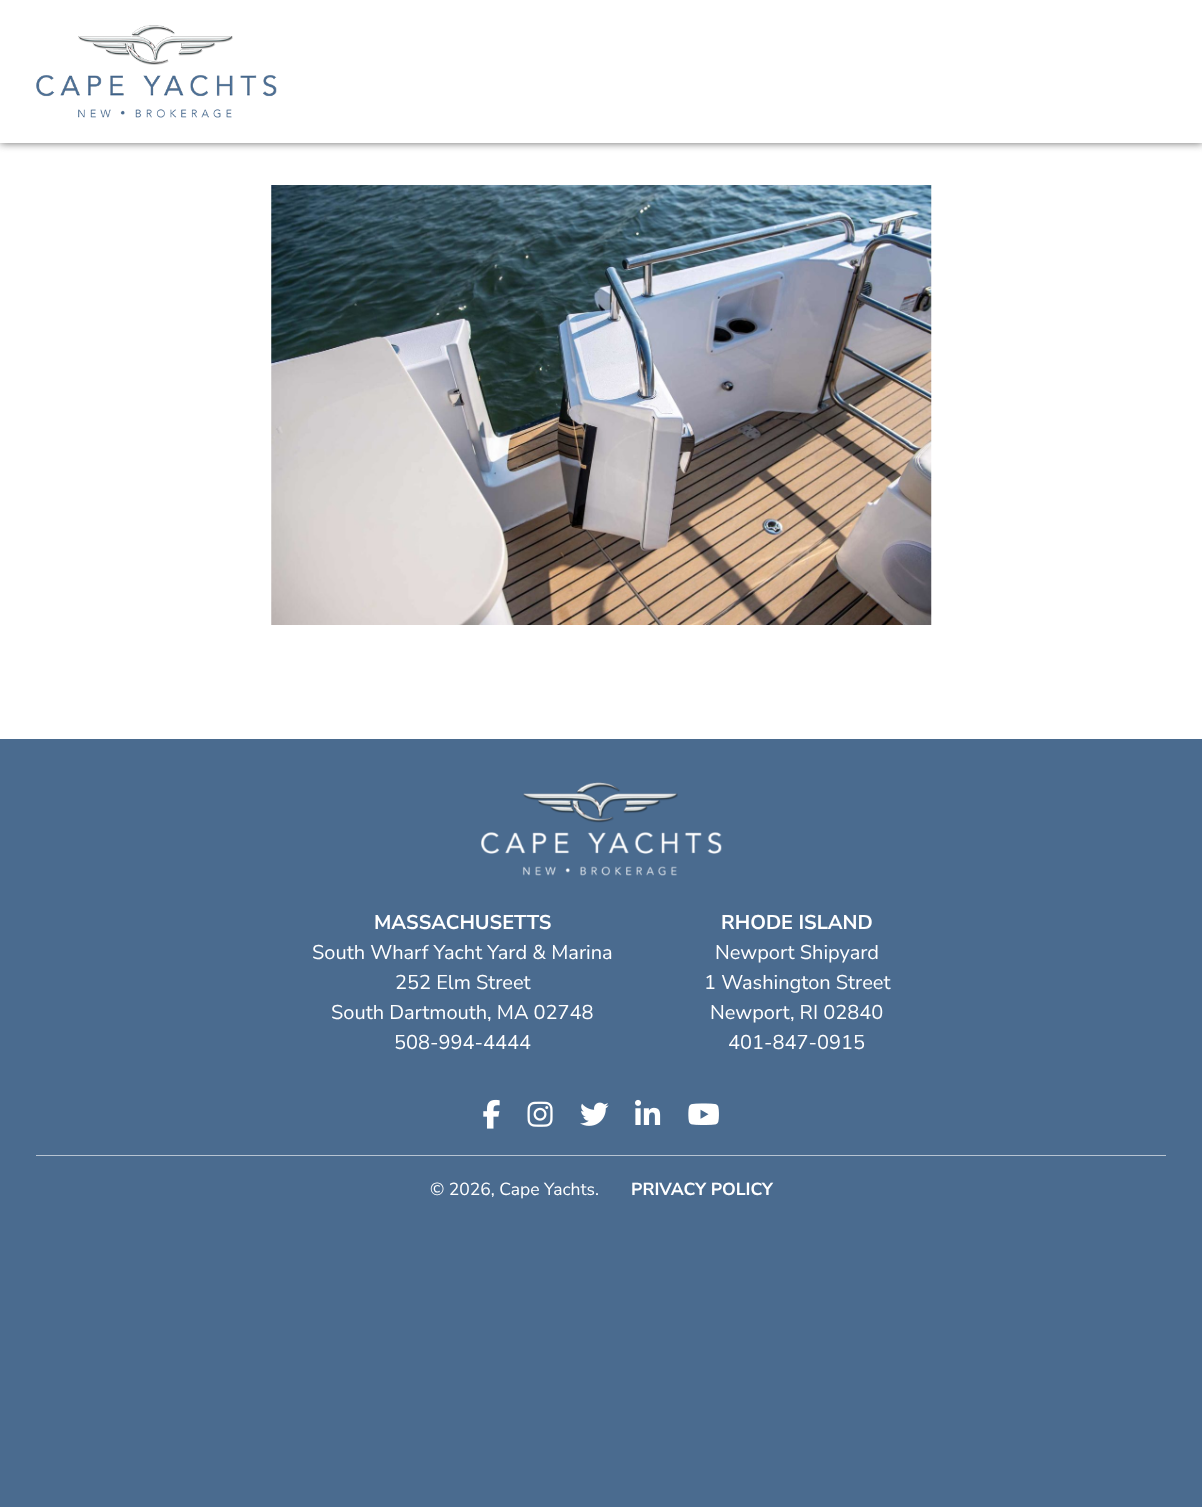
(async () => {
  const canvas = document.querySelector("canvas");
  canvas.width = 1202;
  canvas.height = 1507;
  const ctx = canvas.getContext("2d");
  ctx.miterLimit = 4;
  ctx.fontKerning = "normal";
  async function loadImage(src) {
    const img = new Image();
    img.src = src;
    await img.decode();
    return img;
  }

  ctx.fillStyle = "#4a6b8f";
  ctx.fillRect(0, 0, 1202, 1507);
  ctx.fillStyle = "#ffffff";
  ctx.fillRect(0, 143, 1202, 596);
  ctx.fillStyle = "#666666";
  ctx.filter = "blur(4px)";
  ctx.beginPath();
  ctx.rect(0, 0, 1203, 143);
  ctx.fill();
  ctx.filter = "none";
  ctx.fillStyle = "#ffffff";
  ctx.fillRect(0, 0, 1202, 143);
  ctx.drawImage(await loadImage("img/1.png"), 36, 25, 241, 93);
  ctx.drawImage(await loadImage("img/2.png"), 271, 185, 661, 440);
  ctx.drawImage(await loadImage("img/3.png"), 481, 782, 241, 94);
  ctx.drawImage(await loadImage("img/4.png"), 483, 1099, 17, 30);
  ctx.drawImage(await loadImage("img/5.png"), 527, 1101, 26, 26);
  ctx.drawImage(await loadImage("img/6.png"), 580, 1102, 29, 24);
  ctx.drawImage(await loadImage("img/7.png"), 635, 1099, 26, 26);
  ctx.drawImage(await loadImage("img/8.png"), 688, 1103, 31, 22);
  ctx.fillStyle = "#b7c4d2";
  ctx.fillRect(36, 1155, 1130, 1);
  ctx.font = "bold 20px Nunito Sans";
  ctx.fillStyle = "#ffffff";
  ctx.fillText("MASSACHUSETTS", 374, 929);
  ctx.font = "20px Nunito Sans";
  for (const [text, x, y] of [
    ["South Wharf Yacht Yard & Marina", 312, 959],
    ["252 Elm Street", 395, 989],
    ["South Dartmouth, MA 02748", 331, 1019],
    ["508-994-4444", 394, 1049],
  ]) {
    ctx.fillText(text, x, y);
  }
  ctx.font = "bold 20px Nunito Sans";
  ctx.fillText("RHODE ISLAND", 721, 929);
  ctx.font = "20px Nunito Sans";
  for (const [text, x, y] of [
    ["Newport Shipyard", 715, 959],
    ["1 Washington Street", 704, 989],
    ["Newport, RI 02840", 710, 1019],
    ["401-847-0915", 728, 1049],
  ]) {
    ctx.fillText(text, x, y);
  }
  ctx.font = "17.5px Nunito Sans";
  ctx.fillText("© 2026, Cape Yachts.", 430, 1195);
  ctx.font = "bold 17.5px Nunito Sans";
  ctx.fillText("PRIVACY POLICY", 631, 1195);
})();
